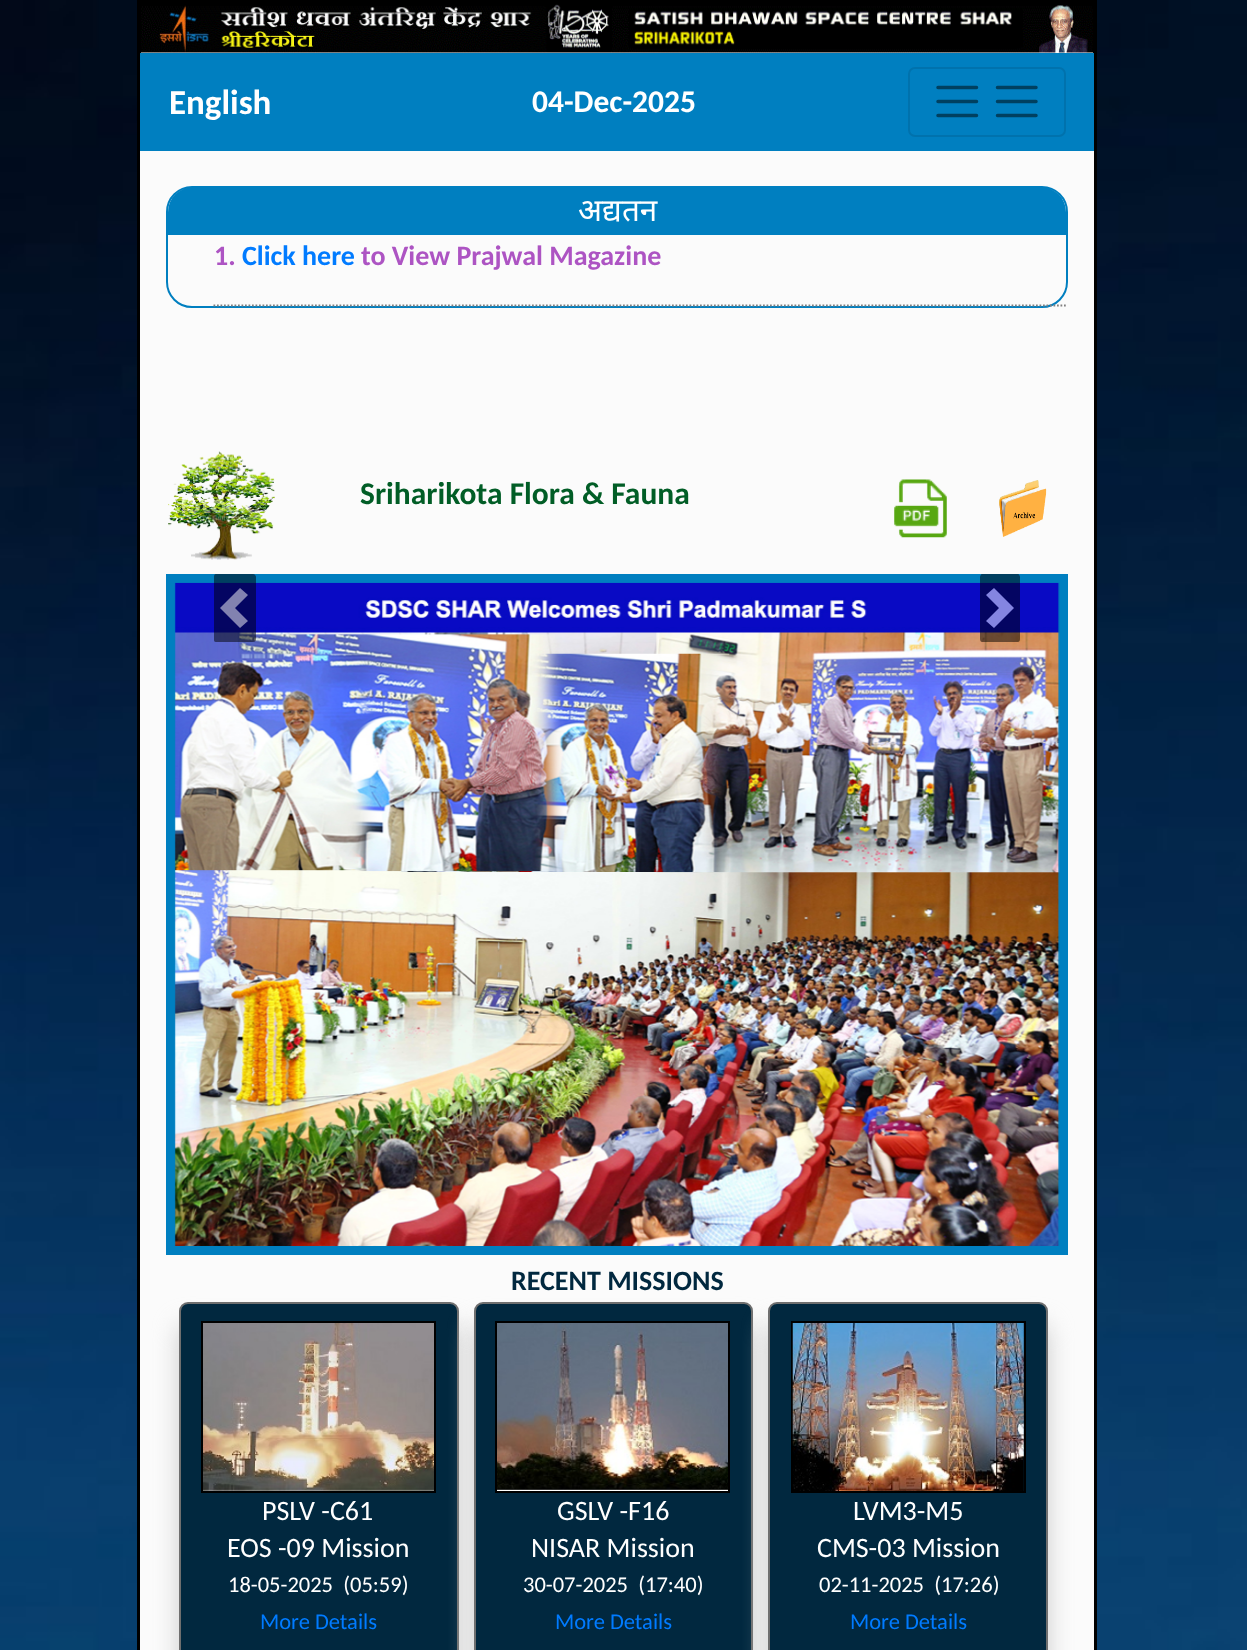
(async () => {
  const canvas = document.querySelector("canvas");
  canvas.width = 1247;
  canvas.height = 1650;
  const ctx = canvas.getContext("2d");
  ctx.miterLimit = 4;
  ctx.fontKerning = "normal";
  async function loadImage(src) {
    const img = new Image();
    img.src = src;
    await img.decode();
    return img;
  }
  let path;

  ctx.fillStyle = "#ffffff";
  ctx.fillRect(0, 0, 1247, 1650);
  ctx.drawImage(await loadImage("img/1.png"), 0, 0, 1247, 1650);
  ctx.fillRect(141, 52, 952, 1);
  ctx.strokeStyle = "#000000";
  ctx.lineWidth = 4;
  ctx.strokeRect(139, 2, 956, 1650);
  ctx.drawImage(await loadImage("img/2.png"), 141, 4, 952, 49);
  ctx.fillStyle = "#007fc0";
  ctx.fillRect(140, 53, 954, 98);
  ctx.beginPath();
  ctx.roundRect(909, 68, 156, 68, 6);
  ctx.strokeStyle = "#0072ad";
  ctx.lineWidth = 2;
  ctx.stroke();
  path = new Path2D("M938 87.5H976.5M938 101.5H976.5M938 115.5H976.5");
  ctx.strokeStyle = "#004060";
  ctx.lineWidth = 3.5;
  ctx.lineCap = "round";
  ctx.stroke(path);
  path = new Path2D("M997.5 87.5H1036M997.5 101.5H1036M997.5 115.5H1036");
  ctx.stroke(path);
  ctx.fillStyle = "#fbfbfb";
  ctx.fillRect(140, 151, 954, 1499);
  ctx.beginPath();
  ctx.roundRect(167, 187, 900, 120, 25);
  ctx.strokeStyle = "#007fc0";
  ctx.lineWidth = 2;
  ctx.stroke();
  ctx.fillStyle = "#007fc0";
  ctx.beginPath();
  ctx.roundRect(168, 187, 898, 48, [25, 25, 0, 0]);
  ctx.fill();
  path = new Path2D("M213.5 305.5H1066");
  ctx.strokeStyle = "#808080";
  ctx.lineWidth = 1.8;
  ctx.lineCap = "butt";
  ctx.setLineDash([1.75, 1.75]);
  ctx.stroke(path);
  ctx.drawImage(await loadImage("img/3.png"), 168, 451, 107, 109);
  ctx.drawImage(await loadImage("img/4.png"), 894, 479, 53, 59);
  ctx.drawImage(await loadImage("img/5.png"), 999, 480, 48, 57);
  ctx.fillRect(166, 574, 902, 681);
  ctx.drawImage(await loadImage("img/6.png"), 174, 582, 886, 664);
  ctx.fillStyle = "rgba(0, 0, 0, 0.5)";
  path = new Path2D("M216 574H253C255 574 256 576 256 577V639C256 641 255 642 253 642H216C214 642 214 641 214 639V577C214 576 214 574 216 574Z");
  ctx.fill(path);
  ctx.fillStyle = "#8282b0";
  path = new Path2D("M240 588L220 608L240 628L248 621L235 608L248 595Z");
  ctx.fill(path);
  ctx.fillStyle = "rgba(0, 0, 0, 0.5)";
  path = new Path2D("M982 574H1018C1019 574 1020 576 1020 577V639C1020 641 1019 642 1018 642H982C981 642 980 641 980 639V577C980 576 981 574 982 574Z");
  ctx.fill(path);
  ctx.fillStyle = "#8485e1";
  path = new Path2D("M994 588L986 595L999 608L986 621L994 628L1014 608Z");
  ctx.fill(path);
  ctx.fillStyle = "#cccccc";
  ctx.filter = "blur(12px)";
  ctx.beginPath();
  ctx.roundRect(179, 1325, 280, 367, 9);
  ctx.fill();
  ctx.filter = "none";
  ctx.fillStyle = "#01283f";
  ctx.beginPath();
  ctx.roundRect(180, 1303, 278, 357, 8);
  ctx.fill();
  ctx.strokeStyle = "#6f6f6f";
  ctx.lineWidth = 2;
  ctx.setLineDash([]);
  ctx.stroke();
  ctx.strokeStyle = "#000000";
  ctx.strokeRect(202, 1322, 233, 170);
  ctx.drawImage(await loadImage("img/7.png"), 203, 1323, 231, 168);
  ctx.fillStyle = "#cccccc";
  ctx.filter = "blur(12px)";
  ctx.beginPath();
  ctx.roundRect(474, 1325, 279, 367, 9);
  ctx.fill();
  ctx.filter = "none";
  ctx.fillStyle = "#01283f";
  ctx.beginPath();
  ctx.roundRect(475, 1303, 277, 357, 8);
  ctx.fill();
  ctx.strokeStyle = "#6f6f6f";
  ctx.stroke();
  ctx.strokeStyle = "#000000";
  ctx.strokeRect(496, 1322, 233, 170);
  ctx.drawImage(await loadImage("img/8.png"), 497, 1323, 231, 168);
  ctx.fillStyle = "#cccccc";
  ctx.filter = "blur(12px)";
  ctx.beginPath();
  ctx.roundRect(768, 1325, 280, 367, 9);
  ctx.fill();
  ctx.filter = "none";
  ctx.fillStyle = "#01283f";
  ctx.beginPath();
  ctx.roundRect(769, 1303, 278, 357, 8);
  ctx.fill();
  ctx.strokeStyle = "#6f6f6f";
  ctx.stroke();
  ctx.strokeStyle = "#000000";
  ctx.strokeRect(792, 1322, 233, 170);
  ctx.drawImage(await loadImage("img/9.png"), 792, 1323, 232, 168);
  ctx.font = "bold 35px Carlito";
  ctx.fillStyle = "#ffffff";
  ctx.fillText("English", 169, 114);
  ctx.font = "bold 31.5px Carlito";
  ctx.fillText("04-Dec-2025", 532, 112);
  ctx.font = "31.5px Noto Sans";
  ctx.fillText("अद्यतन", 578, 221);
  ctx.font = "bold 28px Carlito";
  ctx.fillStyle = "#ad54c3";
  ctx.fillText("1.", 214, 265);
  ctx.fillStyle = "#007bff";
  ctx.fillText("Click here", 242, 265);
  ctx.fillStyle = "#ad54c3";
  ctx.fillText("to View Prajwal Magazine", 361, 265);
  ctx.font = "bold 31.5px Carlito";
  ctx.fillStyle = "#015d26";
  ctx.fillText("Sriharikota Flora & Fauna", 360, 504);
  ctx.font = "bold 28px Carlito";
  ctx.fillStyle = "#01283f";
  ctx.fillText("RECENT MISSIONS", 511, 1290);
  ctx.font = "28px Carlito";
  ctx.fillStyle = "#ffffff";
  ctx.fillText("PSLV -C61", 262, 1520);
  ctx.fillText("EOS -09 Mission", 227, 1557);
  ctx.font = "22.5px Carlito";
  ctx.fillText("18-05-2025  (05:59)", 228, 1592);
  ctx.fillStyle = "#007bff";
  ctx.fillText("More Details", 260, 1629);
  ctx.font = "28px Carlito";
  ctx.fillStyle = "#ffffff";
  ctx.fillText("GSLV -F16", 557, 1520);
  ctx.fillText("NISAR Mission", 531, 1557);
  ctx.font = "22.5px Carlito";
  ctx.fillText("30-07-2025  (17:40)", 523, 1592);
  ctx.fillStyle = "#007bff";
  ctx.fillText("More Details", 555, 1629);
  ctx.font = "28px Carlito";
  ctx.fillStyle = "#ffffff";
  ctx.fillText("LVM3-M5", 853, 1520);
  ctx.fillText("CMS-03 Mission", 817, 1557);
  ctx.font = "22.5px Carlito";
  ctx.fillText("02-11-2025  (17:26)", 819, 1592);
  ctx.fillStyle = "#007bff";
  ctx.fillText("More Details", 850, 1629);
})();
